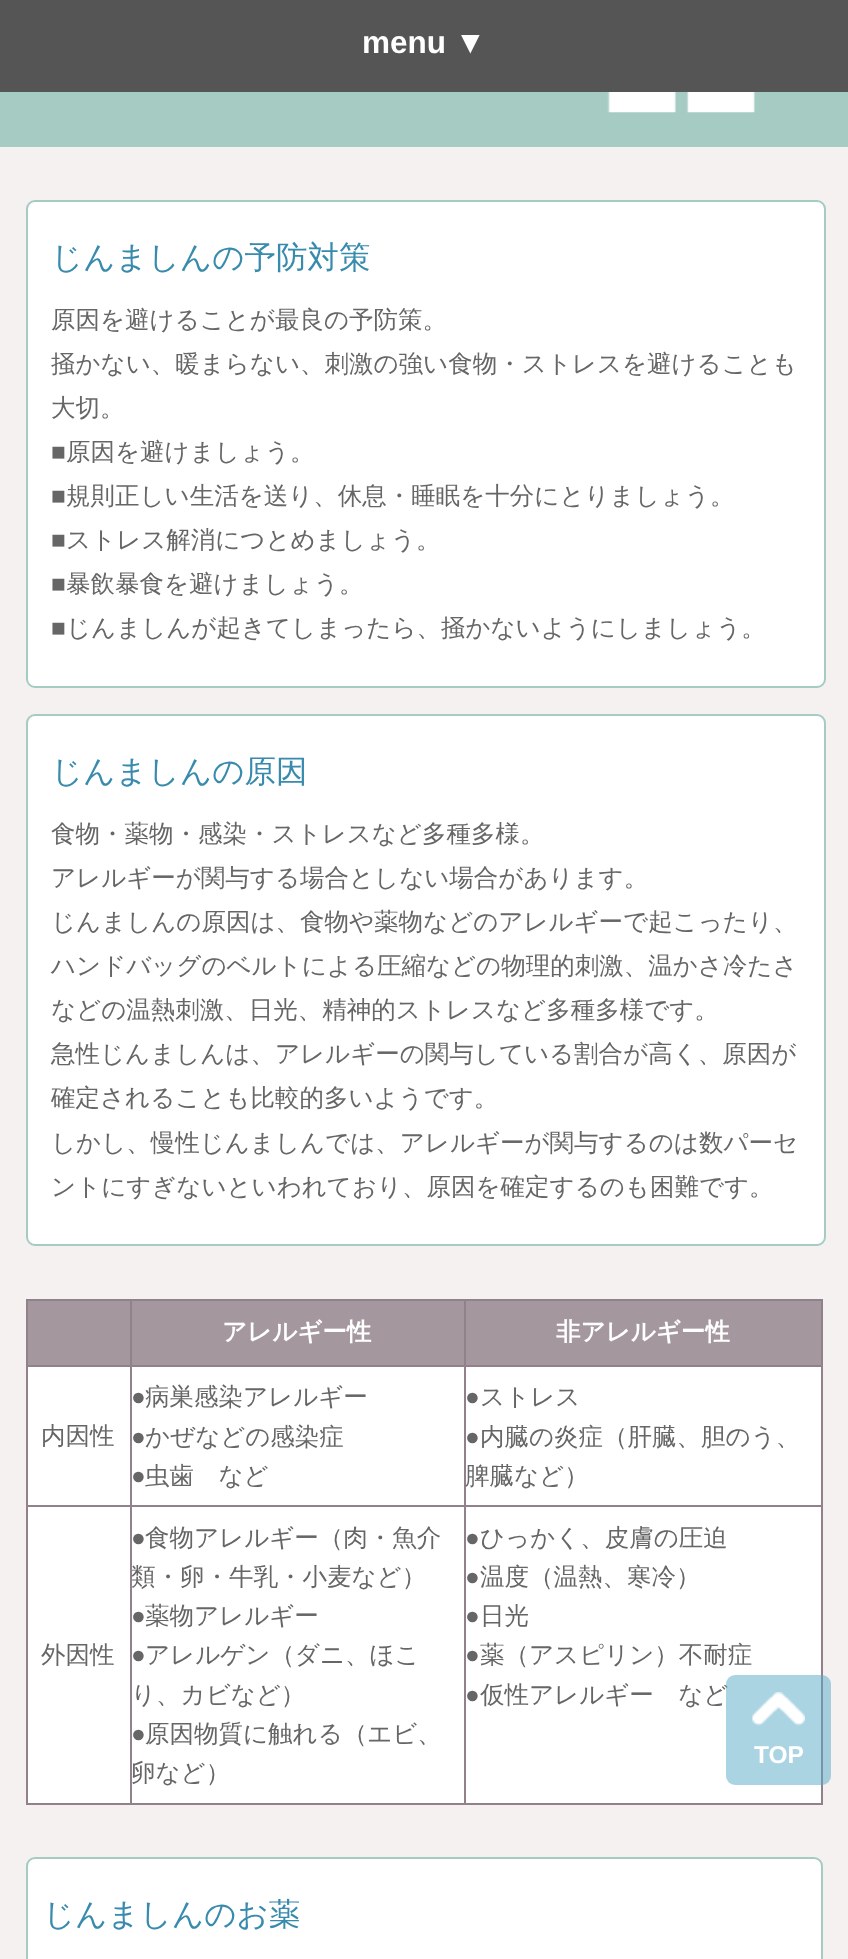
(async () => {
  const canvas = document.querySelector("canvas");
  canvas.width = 848;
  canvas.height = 1959;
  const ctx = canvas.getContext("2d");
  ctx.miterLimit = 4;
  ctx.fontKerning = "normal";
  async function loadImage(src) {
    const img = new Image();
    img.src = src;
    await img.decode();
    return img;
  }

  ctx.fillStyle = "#f4f1f0";
  ctx.fillRect(0, 0, 848, 1959);
  ctx.fillStyle = "#555555";
  ctx.fillRect(0, 0, 848, 92);
  ctx.fillStyle = "#a5cbc3";
  ctx.fillRect(0, 92, 848, 55);
  ctx.drawImage(await loadImage("img/1.png"), 559, 92, 196, 21);
  ctx.fillStyle = "#ffffff";
  ctx.beginPath();
  ctx.roundRect(27, 201, 798, 486, 8);
  ctx.fill();
  ctx.strokeStyle = "#a5cbc3";
  ctx.lineWidth = 2;
  ctx.stroke();
  ctx.beginPath();
  ctx.roundRect(27, 715, 798, 530, 8);
  ctx.fill();
  ctx.stroke();
  for (const [x, y, w, h, color] of [
    [26, 1299, 797, 2, "#91818a"],
    [821, 1299, 2, 505, "#91818a"],
    [26, 1803, 797, 2, "#91818a"],
    [26, 1299, 2, 505, "#91818a"],
    [28, 1301, 102, 64, "#a4979e"],
    [132, 1301, 332, 64, "#a4979e"],
    [464, 1365, 359, 2, "#91818a"],
    [464, 1505, 359, 2, "#91818a"],
    [464, 1505, 2, 299, "#91818a"],
    [130, 1505, 336, 2, "#91818a"],
    [464, 1365, 2, 142, "#91818a"],
    [130, 1365, 336, 2, "#91818a"],
    [130, 1505, 2, 299, "#91818a"],
    [26, 1505, 105, 2, "#91818a"],
    [130, 1365, 2, 142, "#91818a"],
    [26, 1365, 105, 2, "#91818a"],
    [130, 1299, 2, 68, "#91818a"],
    [466, 1301, 355, 64, "#a4979e"],
    [464, 1299, 2, 68, "#91818a"],
    [28, 1367, 102, 138, "#ffffff"],
    [132, 1367, 332, 138, "#ffffff"],
    [466, 1367, 355, 138, "#ffffff"],
    [28, 1507, 102, 296, "#ffffff"],
    [132, 1507, 332, 296, "#ffffff"],
    [466, 1507, 355, 296, "#ffffff"],
  ]) {
    ctx.fillStyle = color;
    ctx.fillRect(x, y, w, h);
  }
  ctx.beginPath();
  ctx.roundRect(27, 1858, 795, 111, 8);
  ctx.fill();
  ctx.stroke();
  ctx.font = "bold 31.5px Liberation Sans";
  ctx.fillText("menu ▼", 362, 53);
  ctx.font = "500 31.5px WenQuanYi Zen Hei";
  ctx.fillStyle = "#398bae";
  ctx.fillText("じんましんの予防対策", 51, 268);
  ctx.font = "500 24.5px WenQuanYi Zen Hei";
  ctx.fillStyle = "#666666";
  for (const [text, x, y] of [
    ["原因を避けることが最良の予防策。", 51, 328],
    ["掻かない、暖まらない、刺激の強い食物・ストレスを避けることも", 51, 372],
    ["大切。", 51, 416],
  ]) {
    ctx.fillText(text, x, y);
  }
  ctx.font = "24.5px Liberation Sans";
  ctx.fillText("■", 51, 460);
  ctx.font = "500 24.5px WenQuanYi Zen Hei";
  ctx.fillText("原因を避けましょう。", 66, 460);
  ctx.font = "24.5px Liberation Sans";
  ctx.fillText("■", 51, 504);
  ctx.font = "500 24.5px WenQuanYi Zen Hei";
  ctx.fillText("規則正しい生活を送り、休息・睡眠を十分にとりましょう。", 66, 504);
  ctx.font = "24.5px Liberation Sans";
  ctx.fillText("■", 51, 548);
  ctx.font = "500 24.5px WenQuanYi Zen Hei";
  ctx.fillText("ストレス解消につとめましょう。", 66, 548);
  ctx.font = "24.5px Liberation Sans";
  ctx.fillText("■", 51, 592);
  ctx.font = "500 24.5px WenQuanYi Zen Hei";
  ctx.fillText("暴飲暴食を避けましょう。", 66, 592);
  ctx.font = "24.5px Liberation Sans";
  ctx.fillText("■", 51, 636);
  ctx.font = "500 24.5px WenQuanYi Zen Hei";
  ctx.fillText("じんましんが起きてしまったら、掻かないようにしましょう。", 66, 636);
  ctx.font = "500 31.5px WenQuanYi Zen Hei";
  ctx.fillStyle = "#398bae";
  ctx.fillText("じんましんの原因", 51, 782);
  ctx.font = "500 24.5px WenQuanYi Zen Hei";
  ctx.fillStyle = "#666666";
  for (const [text, x, y] of [
    ["食物・薬物・感染・ストレスなど多種多様。", 51, 842],
    ["アレルギーが関与する場合としない場合があります。", 51, 886],
    ["じんましんの原因は、食物や薬物などのアレルギーで起こったり、", 51, 930],
    ["ハンドバッグのベルトによる圧縮などの物理的刺激、温かさ冷たさ", 51, 974],
    ["などの温熱刺激、日光、精神的ストレスなど多種多様です。", 51, 1018],
    ["急性じんましんは、アレルギーの関与している割合が高く、原因が", 51, 1062],
    ["確定されることも比較的多いようです。", 51, 1106],
    ["しかし、慢性じんましんでは、アレルギーが関与するのは数パーセ", 51, 1151],
    ["ントにすぎないといわれており、原因を確定するのも困難です。", 51, 1195],
  ]) {
    ctx.fillText(text, x, y);
  }
  ctx.font = "bold 24.5px WenQuanYi Zen Hei";
  ctx.fillStyle = "#ffffff";
  ctx.fillText("アレルギー性", 222, 1340);
  ctx.fillText("非アレルギー性", 556, 1340);
  ctx.font = "500 24.5px WenQuanYi Zen Hei";
  ctx.fillStyle = "#666666";
  ctx.fillText("内因性", 41, 1444);
  ctx.font = "24.5px Liberation Sans";
  ctx.fillText("●", 131, 1405);
  ctx.font = "500 24.5px WenQuanYi Zen Hei";
  ctx.fillText("病巣感染アレルギー", 145, 1405);
  ctx.font = "24.5px Liberation Sans";
  ctx.fillText("●", 131, 1445);
  ctx.font = "500 24.5px WenQuanYi Zen Hei";
  ctx.fillText("かぜなどの感染症", 145, 1445);
  ctx.font = "24.5px Liberation Sans";
  ctx.fillText("●", 131, 1484);
  ctx.font = "500 24.5px WenQuanYi Zen Hei";
  ctx.fillText("虫歯　など", 145, 1484);
  ctx.font = "24.5px Liberation Sans";
  ctx.fillText("●", 465, 1405);
  ctx.font = "500 24.5px WenQuanYi Zen Hei";
  ctx.fillText("ストレス", 480, 1405);
  ctx.font = "24.5px Liberation Sans";
  ctx.fillText("●", 465, 1445);
  ctx.font = "500 24.5px WenQuanYi Zen Hei";
  for (const [text, x, y] of [
    ["内臓の炎症（肝臓、胆のう、", 480, 1445],
    ["脾臓など）", 465, 1484],
    ["外因性", 41, 1663],
  ]) {
    ctx.fillText(text, x, y);
  }
  ctx.font = "24.5px Liberation Sans";
  ctx.fillText("●", 131, 1546);
  ctx.font = "500 24.5px WenQuanYi Zen Hei";
  ctx.fillText("食物アレルギー（肉・魚介", 145, 1546);
  ctx.fillText("類・卵・牛乳・小麦など）", 131, 1585);
  ctx.font = "24.5px Liberation Sans";
  ctx.fillText("●", 131, 1624);
  ctx.font = "500 24.5px WenQuanYi Zen Hei";
  ctx.fillText("薬物アレルギー", 145, 1624);
  ctx.font = "24.5px Liberation Sans";
  ctx.fillText("●", 131, 1663);
  ctx.font = "500 24.5px WenQuanYi Zen Hei";
  ctx.fillText("アレルゲン（ダニ、ほこ", 145, 1663);
  ctx.fillText("り、カビなど）", 131, 1703);
  ctx.font = "24.5px Liberation Sans";
  ctx.fillText("●", 131, 1742);
  ctx.font = "500 24.5px WenQuanYi Zen Hei";
  ctx.fillText("原因物質に触れる（エビ、", 145, 1742);
  ctx.fillText("卵など）", 131, 1781);
  ctx.font = "24.5px Liberation Sans";
  ctx.fillText("●", 465, 1546);
  ctx.font = "500 24.5px WenQuanYi Zen Hei";
  ctx.fillText("ひっかく、皮膚の圧迫", 480, 1546);
  ctx.font = "24.5px Liberation Sans";
  ctx.fillText("●", 465, 1585);
  ctx.font = "500 24.5px WenQuanYi Zen Hei";
  ctx.fillText("温度（温熱、寒冷）", 480, 1585);
  ctx.font = "24.5px Liberation Sans";
  ctx.fillText("●", 465, 1624);
  ctx.font = "500 24.5px WenQuanYi Zen Hei";
  ctx.fillText("日光", 480, 1624);
  ctx.font = "24.5px Liberation Sans";
  ctx.fillText("●", 465, 1663);
  ctx.font = "500 24.5px WenQuanYi Zen Hei";
  ctx.fillText("薬（アスピリン）不耐症", 480, 1663);
  ctx.font = "24.5px Liberation Sans";
  ctx.fillText("●", 465, 1703);
  ctx.font = "500 24.5px WenQuanYi Zen Hei";
  ctx.fillText("仮性アレルギー　など", 480, 1703);
  ctx.font = "500 31.5px WenQuanYi Zen Hei";
  ctx.fillStyle = "#398bae";
  ctx.fillText("じんましんのお薬", 43, 1925);
  ctx.fillStyle = "rgba(87, 169, 200, 0.5)";
  ctx.beginPath();
  ctx.roundRect(726, 1675, 105, 110, 9);
  ctx.fill();
  ctx.drawImage(await loadImage("img/2.png"), 752, 1692, 53, 34);
  ctx.font = "bold 24.5px Liberation Sans";
  ctx.fillStyle = "#ffffff";
  ctx.fillText("TOP", 754, 1763);
})();
